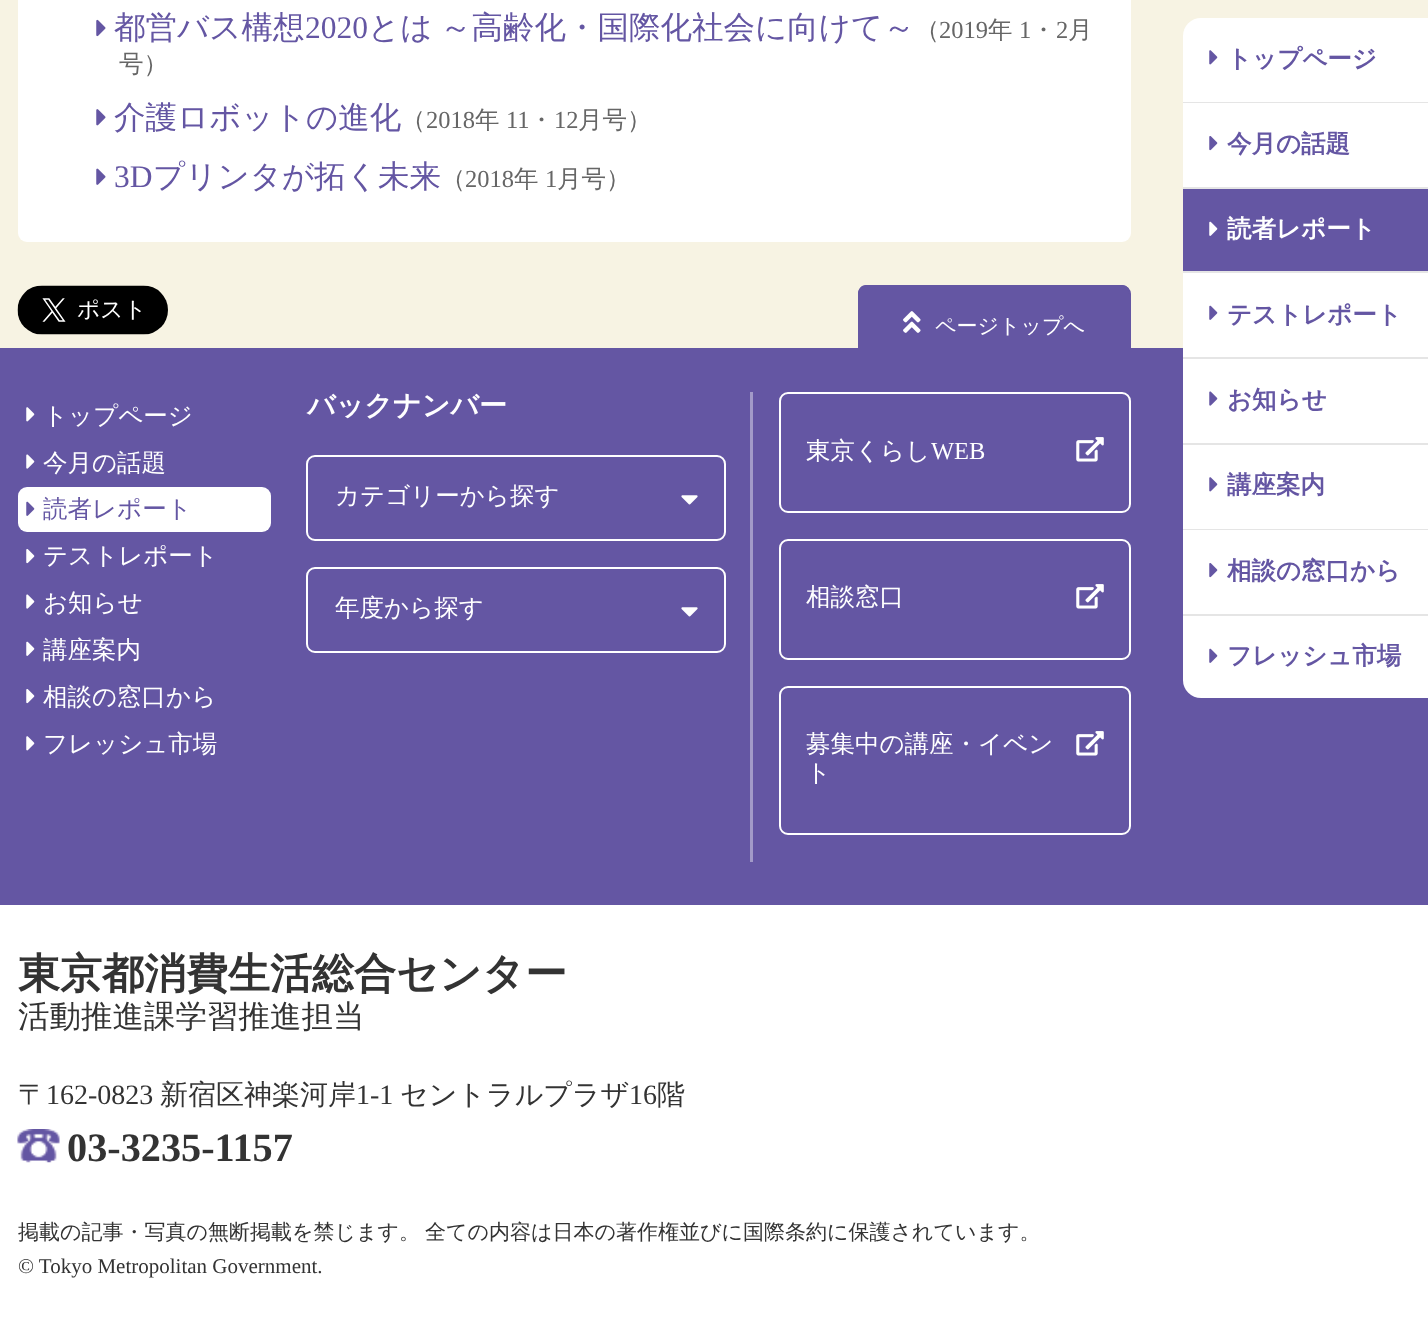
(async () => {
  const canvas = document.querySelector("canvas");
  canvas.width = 1428;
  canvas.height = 1325;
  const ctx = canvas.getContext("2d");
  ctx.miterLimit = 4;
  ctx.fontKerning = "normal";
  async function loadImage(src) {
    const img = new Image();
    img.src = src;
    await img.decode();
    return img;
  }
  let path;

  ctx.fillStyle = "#ffffff";
  ctx.fillRect(0, 0, 1428, 1325);
  ctx.fillStyle = "#f7f3e3";
  ctx.fillRect(0, 0, 1428, 348);
  ctx.fillStyle = "#ffffff";
  ctx.beginPath();
  ctx.roundRect(18, -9, 1113, 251, 9);
  ctx.fill();
  ctx.drawImage(await loadImage("img/1.png"), 96, 19, 10, 18);
  ctx.drawImage(await loadImage("img/2.png"), 96, 109, 10, 17);
  ctx.drawImage(await loadImage("img/3.png"), 96, 168, 10, 17);
  ctx.drawImage(await loadImage("img/4.png"), 17, 285, 151, 50);
  ctx.fillStyle = "#6456a3";
  ctx.beginPath();
  ctx.roundRect(858, 285, 273, 63, [9, 9, 0, 0]);
  ctx.fill();
  path = new Path2D("M866 285H1122C1127 285 1130 289 1130 294V348H858V294C858 289 861 285 866 285ZM866 287H1122C1126 287 1129 290 1129 294V348H859V294C859 290 862 287 866 287Z");
  ctx.fill(path, "evenodd");
  ctx.drawImage(await loadImage("img/5.png"), 903, 311, 18, 22);
  ctx.fillStyle = "#e5e5e5";
  ctx.fillRect(1183, 102, 245, 1);
  ctx.fillStyle = "#ffffff";
  ctx.beginPath();
  ctx.roundRect(1183, 18, 245, 84, [18, 0, 0, 0]);
  ctx.fill();
  ctx.drawImage(await loadImage("img/6.png"), 1209, 50, 9, 15);
  ctx.fillStyle = "#e5e5e5";
  ctx.fillRect(1183, 187, 245, 2);
  ctx.fillStyle = "#ffffff";
  ctx.fillRect(1183, 103, 245, 84);
  ctx.drawImage(await loadImage("img/7.png"), 1209, 136, 9, 15);
  ctx.fillStyle = "#e5e5e5";
  ctx.fillRect(1183, 271, 245, 2);
  ctx.fillStyle = "#6456a3";
  ctx.fillRect(1183, 189, 245, 82);
  ctx.drawImage(await loadImage("img/8.png"), 1209, 221, 9, 15);
  for (const [x, y, w, h, color] of [
    [0, 348, 1428, 557, "#6456a3"],
    [1183, 357, 245, 2, "#e5e5e5"],
    [1183, 273, 245, 84, "#ffffff"],
  ]) {
    ctx.fillStyle = color;
    ctx.fillRect(x, y, w, h);
  }
  ctx.drawImage(await loadImage("img/9.png"), 1209, 305, 9, 15);
  ctx.fillStyle = "#e5e5e5";
  ctx.fillRect(1183, 443, 245, 2);
  ctx.fillStyle = "#ffffff";
  ctx.fillRect(1183, 359, 245, 84);
  ctx.drawImage(await loadImage("img/10.png"), 1209, 391, 9, 15);
  ctx.fillStyle = "#e5e5e5";
  ctx.fillRect(1183, 529, 245, 1);
  ctx.fillStyle = "#ffffff";
  ctx.fillRect(1183, 445, 245, 84);
  ctx.drawImage(await loadImage("img/6.png"), 1209, 477, 9, 15);
  ctx.fillStyle = "#e5e5e5";
  ctx.fillRect(1183, 614, 245, 2);
  ctx.fillStyle = "#ffffff";
  ctx.fillRect(1183, 530, 245, 84);
  ctx.drawImage(await loadImage("img/7.png"), 1209, 563, 9, 15);
  ctx.beginPath();
  ctx.roundRect(1183, 616, 245, 82, [0, 0, 0, 18]);
  ctx.fill();
  ctx.drawImage(await loadImage("img/9.png"), 1209, 648, 9, 15);
  ctx.drawImage(await loadImage("img/11.png"), 26, 407, 9, 15);
  ctx.drawImage(await loadImage("img/12.png"), 26, 454, 9, 15);
  ctx.beginPath();
  ctx.roundRect(18, 487, 253, 45, 9);
  ctx.fill();
  ctx.drawImage(await loadImage("img/9.png"), 26, 501, 9, 15);
  ctx.drawImage(await loadImage("img/13.png"), 26, 549, 9, 15);
  ctx.drawImage(await loadImage("img/12.png"), 26, 594, 9, 15);
  ctx.drawImage(await loadImage("img/8.png"), 26, 641, 9, 15);
  ctx.drawImage(await loadImage("img/13.png"), 26, 689, 9, 15);
  ctx.drawImage(await loadImage("img/11.png"), 26, 736, 9, 15);
  ctx.fillStyle = "#a29ac8";
  ctx.fillRect(750, 392, 3, 470);
  ctx.beginPath();
  ctx.roundRect(307, 456, 418, 84, 8);
  ctx.strokeStyle = "#ffffff";
  ctx.lineWidth = 2;
  ctx.stroke();
  ctx.drawImage(await loadImage("img/14.png"), 681, 495, 17, 10);
  ctx.beginPath();
  ctx.roundRect(307, 568, 418, 84, 8);
  ctx.stroke();
  ctx.drawImage(await loadImage("img/14.png"), 681, 607, 17, 10);
  ctx.beginPath();
  ctx.roundRect(780, 393, 350, 119, 8);
  ctx.stroke();
  ctx.drawImage(await loadImage("img/15.png"), 1076, 437, 28, 25);
  ctx.beginPath();
  ctx.roundRect(780, 540, 350, 119, 8);
  ctx.stroke();
  ctx.drawImage(await loadImage("img/15.png"), 1076, 584, 28, 25);
  ctx.beginPath();
  ctx.roundRect(780, 687, 350, 147, 8);
  ctx.stroke();
  ctx.drawImage(await loadImage("img/15.png"), 1076, 731, 28, 25);
  ctx.drawImage(await loadImage("img/16.png"), 17, 1129, 43, 34);
  ctx.font = "500 31.5px WenQuanYi Zen Hei";
  ctx.fillStyle = "#6456a3";
  ctx.fillText("都営バス構想", 114, 38);
  ctx.font = "31.5px Liberation Serif";
  ctx.fillText("2020", 305, 38);
  ctx.wordSpacing = "-2px";
  ctx.font = "500 31.5px WenQuanYi Zen Hei";
  ctx.fillText("とは ～高齢化・国際化社会に向けて～", 368, 38);
  ctx.wordSpacing = "0px";
  ctx.font = "500 24.5px WenQuanYi Zen Hei";
  ctx.fillStyle = "#666666";
  ctx.fillText("（", 915, 38);
  ctx.font = "24.5px Liberation Serif";
  ctx.fillText("2019", 939, 38);
  ctx.font = "500 24.5px WenQuanYi Zen Hei";
  ctx.fillText("年", 988, 38);
  ctx.font = "24.5px Liberation Serif";
  ctx.fillText("1", 1019, 38);
  ctx.font = "500 24.5px WenQuanYi Zen Hei";
  ctx.fillText("・", 1031, 38);
  ctx.font = "24.5px Liberation Serif";
  ctx.fillText("2", 1056, 38);
  ctx.font = "500 24.5px WenQuanYi Zen Hei";
  ctx.fillText("月", 1068, 38);
  ctx.fillText("号）", 119, 72);
  ctx.font = "500 31.5px WenQuanYi Zen Hei";
  ctx.fillStyle = "#6456a3";
  ctx.fillText("介護ロボットの進化", 114, 128);
  ctx.font = "500 24.5px WenQuanYi Zen Hei";
  ctx.fillStyle = "#666666";
  ctx.fillText("（", 401, 128);
  ctx.font = "24.5px Liberation Serif";
  ctx.fillText("2018", 426, 128);
  ctx.font = "500 24.5px WenQuanYi Zen Hei";
  ctx.fillText("年", 475, 128);
  ctx.font = "24.5px Liberation Serif";
  ctx.fillText("11", 506, 128);
  ctx.font = "500 24.5px WenQuanYi Zen Hei";
  ctx.fillText("・", 529, 128);
  ctx.font = "24.5px Liberation Serif";
  ctx.fillText("12", 554, 128);
  ctx.font = "500 24.5px WenQuanYi Zen Hei";
  ctx.fillText("月号）", 578, 128);
  ctx.font = "31.5px Liberation Serif";
  ctx.fillStyle = "#6456a3";
  ctx.fillText("3D", 114, 187);
  ctx.font = "500 31.5px WenQuanYi Zen Hei";
  ctx.fillText("プリンタが拓く未来", 153, 187);
  ctx.font = "500 24.5px WenQuanYi Zen Hei";
  ctx.fillStyle = "#666666";
  ctx.fillText("（", 441, 187);
  ctx.font = "24.5px Liberation Serif";
  ctx.fillText("2018", 465, 187);
  ctx.font = "500 24.5px WenQuanYi Zen Hei";
  ctx.fillText("年", 514, 187);
  ctx.font = "24.5px Liberation Serif";
  ctx.fillText("1", 545, 187);
  ctx.font = "500 24.5px WenQuanYi Zen Hei";
  ctx.fillText("月号）", 557, 187);
  ctx.font = "500 21px WenQuanYi Zen Hei";
  ctx.fillStyle = "#ffffff";
  ctx.fillText("ページトップへ", 935, 333);
  ctx.font = "bold 24.5px WenQuanYi Zen Hei";
  ctx.fillStyle = "#6456a3";
  ctx.fillText("トップページ", 1227, 67);
  ctx.fillText("今月の話題", 1227, 152);
  ctx.fillStyle = "#ffffff";
  ctx.fillText("読者レポート", 1227, 237);
  ctx.fillStyle = "#6456a3";
  for (const [text, x, y] of [
    ["テストレポート", 1227, 323],
    ["お知らせ", 1227, 408],
    ["講座案内", 1227, 493],
    ["相談の窓口から", 1227, 579],
    ["フレッシュ市場", 1227, 664],
  ]) {
    ctx.fillText(text, x, y);
  }
  ctx.font = "500 24.5px WenQuanYi Zen Hei";
  ctx.fillStyle = "#ffffff";
  ctx.fillText("トップページ", 43, 424);
  ctx.fillText("今月の話題", 43, 471);
  ctx.fillStyle = "#6456a3";
  ctx.fillText("読者レポート", 43, 517);
  ctx.fillStyle = "#ffffff";
  for (const [text, x, y] of [
    ["テストレポート", 43, 564],
    ["お知らせ", 43, 611],
    ["講座案内", 43, 658],
    ["相談の窓口から", 43, 705],
    ["フレッシュ市場", 43, 752],
  ]) {
    ctx.fillText(text, x, y);
  }
  ctx.font = "bold 28px WenQuanYi Zen Hei";
  ctx.fillText("バックナンバー", 307, 415);
  ctx.font = "500 24.5px WenQuanYi Zen Hei";
  for (const [text, x, y] of [
    ["カテゴリーから探す", 335, 504],
    ["年度から探す", 335, 616],
    ["東京くらし", 806, 459],
  ]) {
    ctx.fillText(text, x, y);
  }
  ctx.font = "24.5px Liberation Serif";
  ctx.fillText("WEB", 931, 459);
  ctx.font = "500 24.5px WenQuanYi Zen Hei";
  for (const [text, x, y] of [
    ["相談窓口", 806, 605],
    ["募集中の講座・イベン", 806, 752],
    ["ト", 806, 781],
  ]) {
    ctx.fillText(text, x, y);
  }
  ctx.font = "bold 42px WenQuanYi Zen Hei";
  ctx.fillStyle = "#333333";
  ctx.fillText("東京都消費生活総合センター", 18, 988);
  ctx.font = "500 31.5px WenQuanYi Zen Hei";
  ctx.fillText("活動推進課学習推進担当", 18, 1027);
  ctx.font = "500 28px WenQuanYi Zen Hei";
  ctx.fillText("〒", 18, 1104);
  ctx.font = "28px Liberation Serif";
  ctx.fillText("162-0823", 46, 1104);
  ctx.font = "500 28px WenQuanYi Zen Hei";
  ctx.fillText("新宿区神楽河岸", 160, 1104);
  ctx.font = "28px Liberation Serif";
  ctx.fillText("1-1", 356, 1104);
  ctx.font = "500 28px WenQuanYi Zen Hei";
  ctx.fillText("セントラルプラザ", 400, 1104);
  ctx.font = "28px Liberation Serif";
  ctx.fillText("16", 629, 1104);
  ctx.font = "500 28px WenQuanYi Zen Hei";
  ctx.fillText("階", 657, 1104);
  ctx.font = "bold 40.25px Liberation Serif";
  ctx.fillText("03-3235-1157", 67, 1161);
  ctx.font = "500 21px WenQuanYi Zen Hei";
  ctx.fillText("掲載の記事・写真の無断掲載を禁じます。", 18, 1239);
  ctx.fillText("全ての内容は日本の著作権並びに国際条約に保護されています。", 425, 1239);
  ctx.font = "21px Liberation Serif";
  ctx.fillText("© Tokyo Metropolitan Government.", 18, 1273);
})();
